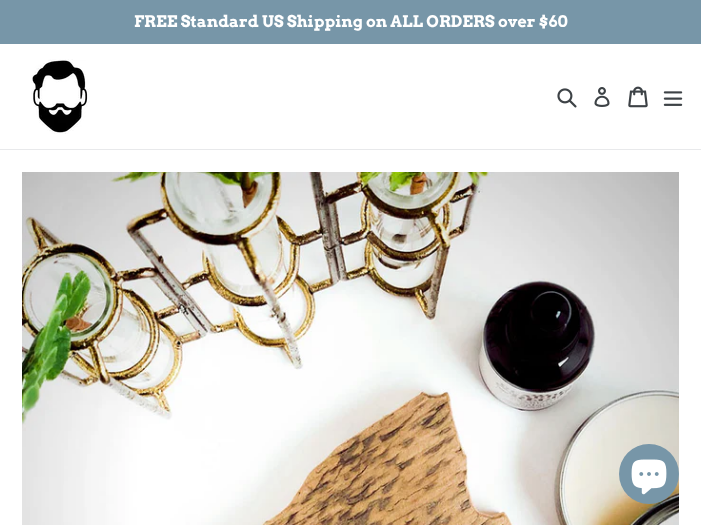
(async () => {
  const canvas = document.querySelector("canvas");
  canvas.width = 701;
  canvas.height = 525;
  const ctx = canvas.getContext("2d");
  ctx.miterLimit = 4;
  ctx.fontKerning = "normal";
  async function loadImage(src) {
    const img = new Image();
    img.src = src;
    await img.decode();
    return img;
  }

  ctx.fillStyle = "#ffffff";
  ctx.fillRect(0, 0, 701, 525);
  ctx.fillStyle = "#7796a8";
  ctx.fillRect(0, 0, 701, 44);
  ctx.fillStyle = "#e8e9eb";
  ctx.fillRect(0, 149, 701, 1);
  ctx.drawImage(await loadImage("img/1.png"), 31, 59, 59, 75);
  ctx.drawImage(await loadImage("img/2.png"), 557, 88, 20, 20);
  ctx.drawImage(await loadImage("img/3.png"), 594, 87, 16, 20);
  ctx.drawImage(await loadImage("img/4.png"), 628, 86, 20, 22);
  ctx.drawImage(await loadImage("img/5.png"), 663, 91, 20, 15);
  ctx.drawImage(await loadImage("img/6.png"), 22, 172, 657, 353);
  ctx.fillStyle = "#7796a8";
  ctx.beginPath();
  ctx.arc(649, 474, 30, 0, Math.PI * 2);
  ctx.fill();
  ctx.drawImage(await loadImage("img/7.png"), 631, 459, 36, 36);
  ctx.font = "bold 16px Arvo";
  ctx.fillStyle = "#ffffff";
  ctx.fillText("FREE Standard US Shipping on ALL ORDERS over $60", 134, 27);
})();
